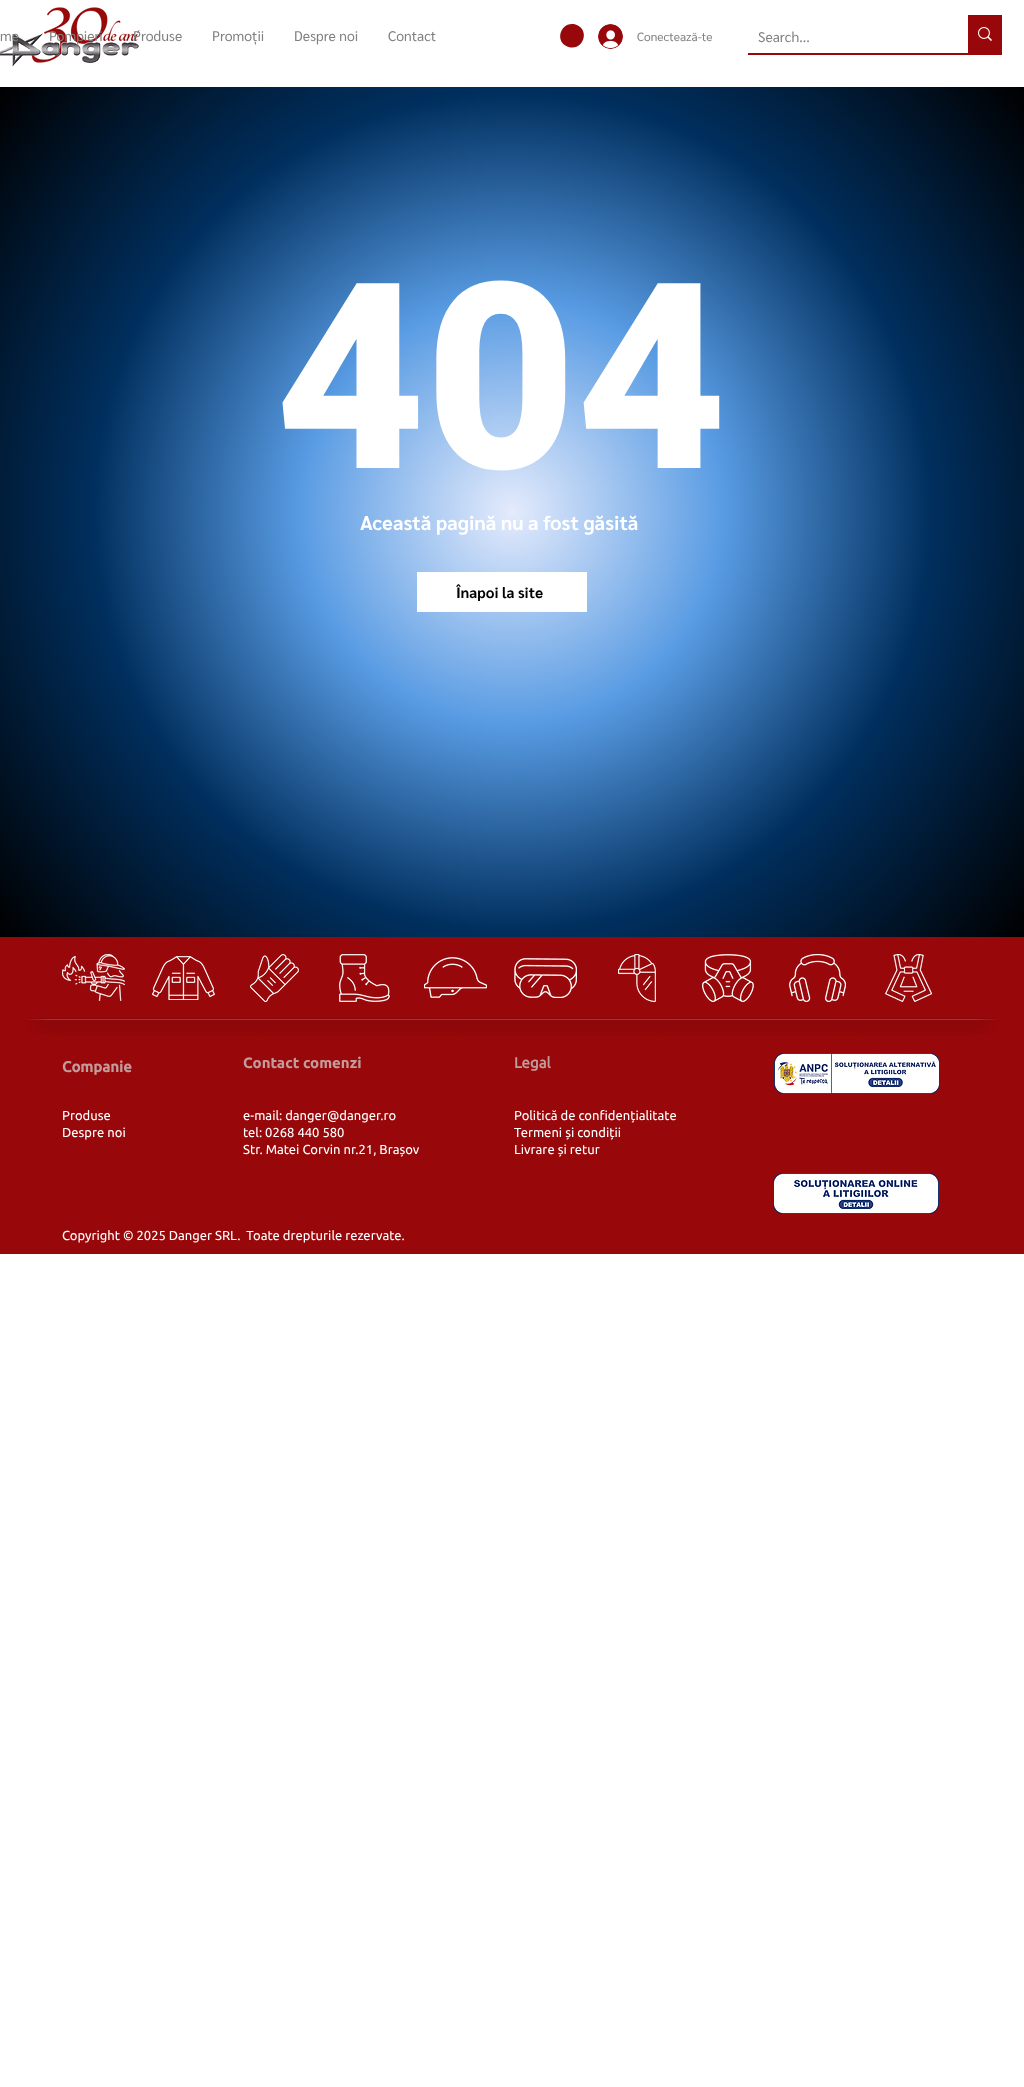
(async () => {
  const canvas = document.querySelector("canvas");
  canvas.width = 1024;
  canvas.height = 2087;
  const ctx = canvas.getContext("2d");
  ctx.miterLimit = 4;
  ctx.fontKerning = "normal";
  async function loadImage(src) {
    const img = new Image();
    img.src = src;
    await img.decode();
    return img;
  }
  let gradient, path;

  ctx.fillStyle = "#ffffff";
  ctx.fillRect(0, 0, 1024, 2087);
  ctx.drawImage(await loadImage("img/1.png"), 0, 7, 140, 60);
  ctx.fillStyle = "#98080a";
  path = new Path2D("M575.5 24.5C590.5 29 583.5 51.5 568.5 47C553.5 42.5 560.5 20.5 575.5 24.5Z");
  ctx.fill(path);
  ctx.drawImage(await loadImage("img/2.png"), 598, 24, 25, 25);
  ctx.fillRect(748, 53, 254, 2);
  ctx.fillRect(968, 15, 34, 38);
  ctx.drawImage(await loadImage("img/3.png"), 978, 27, 14, 14);
  gradient = ctx.createRadialGradient(512, 512, 0, 512, 512, 665);
  gradient.addColorStop(0, "#e4ebfc");
  gradient.addColorStop(0.32, "#589be3");
  gradient.addColorStop(0.63, "#002f5e");
  gradient.addColorStop(1, "#000000");
  ctx.fillStyle = gradient;
  ctx.fillRect(0, 87, 1024, 850);
  ctx.fillStyle = "#ffffff";
  ctx.fillRect(417, 572, 170, 40);
  ctx.fillStyle = "#98080a";
  ctx.fillRect(0, 937, 1024, 317);
  ctx.drawImage(await loadImage("img/4.png"), 62, 954, 63, 47);
  ctx.drawImage(await loadImage("img/5.png"), 152, 956, 63, 44);
  ctx.drawImage(await loadImage("img/6.png"), 250, 954, 49, 48);
  ctx.drawImage(await loadImage("img/7.png"), 339, 954, 51, 48);
  ctx.drawImage(await loadImage("img/8.png"), 424, 957, 63, 41);
  ctx.drawImage(await loadImage("img/9.png"), 514, 958, 63, 40);
  ctx.drawImage(await loadImage("img/10.png"), 618, 954, 38, 48);
  ctx.drawImage(await loadImage("img/11.png"), 702, 954, 52, 48);
  ctx.drawImage(await loadImage("img/12.png"), 789, 954, 57, 48);
  ctx.drawImage(await loadImage("img/13.png"), 885, 954, 47, 48);
  ctx.drawImage(await loadImage("img/14.png"), 27, 1018, 25, 17);
  ctx.drawImage(await loadImage("img/15.png"), 52, 1018, 920, 18);
  ctx.drawImage(await loadImage("img/16.png"), 972, 1018, 25, 17);
  ctx.drawImage(await loadImage("img/17.png"), 774, 1053, 166, 41);
  ctx.drawImage(await loadImage("img/18.png"), 773, 1173, 166, 41);
  ctx.font = "14px Sarabun";
  ctx.fillStyle = "#808080";
  for (const [text, x, y] of [
    ["me", 0, 41],
    ["Pompieri", 49, 41],
    ["Produse", 133, 41],
    ["Promoții", 212, 41],
    ["Despre noi", 294, 41],
    ["Contact", 388, 41],
  ]) {
    ctx.fillText(text, x, y);
  }
  ctx.font = "12px Sarabun";
  ctx.fillText("Conectează-te", 637, 41);
  ctx.font = "14px Sarabun";
  ctx.fillText("Search...", 758, 42);
  ctx.font = "900 260px Roboto";
  ctx.fillStyle = "#ffffff";
  ctx.fillText("404", 275, 468);
  ctx.font = "bold 20px Sarabun";
  ctx.fillText("Această pagină nu a fost găsită", 360, 530);
  ctx.save();
  ctx.beginPath();
  ctx.rect(456, 582, 88, 19);
  ctx.clip();
  ctx.font = "bold 15px 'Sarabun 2'";
  ctx.fillStyle = "#000000";
  ctx.fillText("Înapoi la site", 456, 598);
  ctx.restore();
  ctx.font = "bold 15px Ubuntu";
  ctx.fillStyle = "#c29c9c";
  ctx.fillText("Companie", 62, 1072);
  ctx.font = "bold 15px 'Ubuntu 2'";
  ctx.fillText("Contact comenzi", 243, 1068);
  ctx.font = "bold 15px 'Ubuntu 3'";
  ctx.fillText("Legal", 514, 1068);
  ctx.font = "13px Ubuntu";
  ctx.fillStyle = "#ffffff";
  for (const [text, x, y] of [
    ["Produse", 62, 1120],
    ["Despre noi", 62, 1137],
    ["e-mail: danger@danger.ro", 243, 1120],
    ["tel: 0268 440 580", 243, 1137],
    ["Str. Matei Corvin nr.21, Brașov", 243, 1154],
    ["Politică de confidențialitate", 514, 1120],
    ["Termeni și condiții", 514, 1137],
    ["Livrare și retur", 514, 1154],
    ["Copyright © 2025 Danger SRL.  Toate drepturile rezervate.", 62, 1240],
  ]) {
    ctx.fillText(text, x, y);
  }
})();
